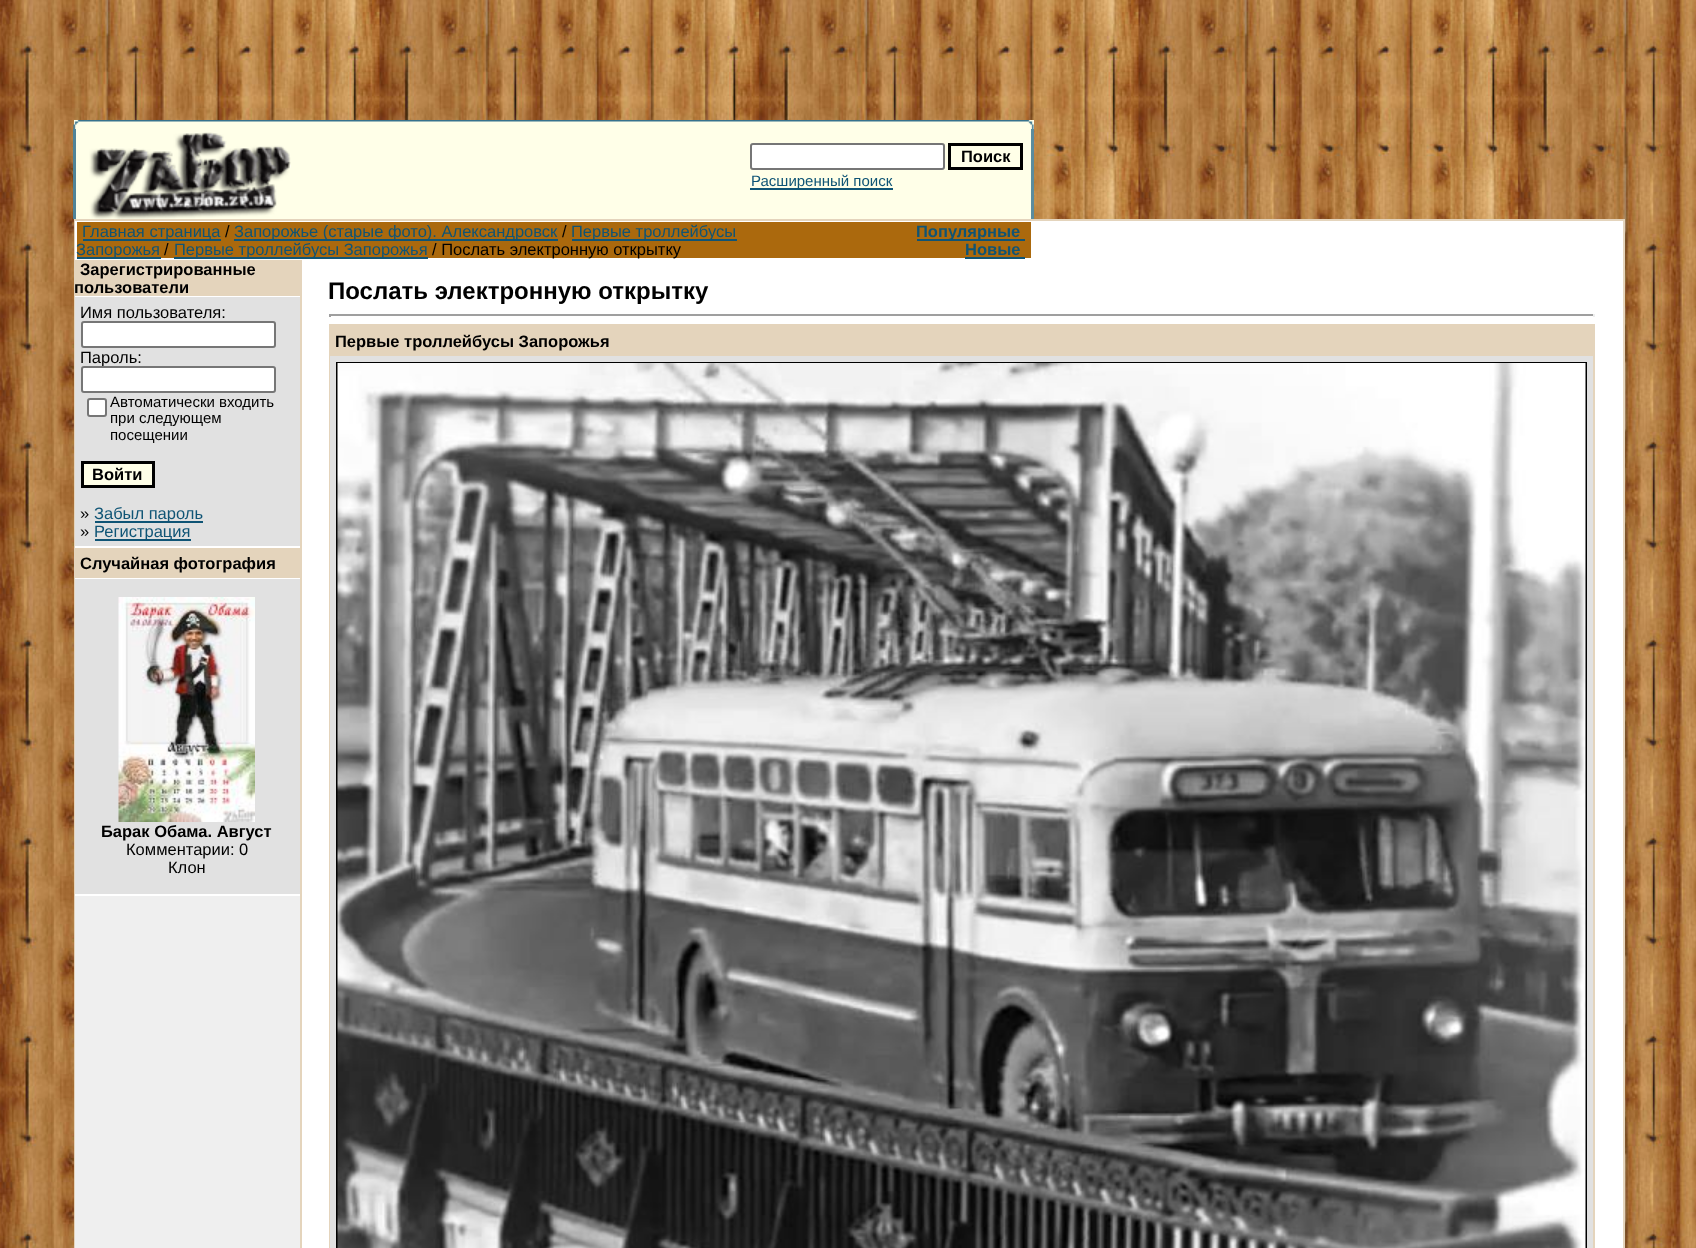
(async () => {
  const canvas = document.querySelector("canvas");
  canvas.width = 1696;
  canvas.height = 1248;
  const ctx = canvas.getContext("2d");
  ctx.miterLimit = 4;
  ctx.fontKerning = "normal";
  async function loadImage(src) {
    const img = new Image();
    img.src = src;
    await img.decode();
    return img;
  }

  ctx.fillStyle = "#ffffff";
  ctx.fillRect(0, 0, 1696, 1248);
  ctx.drawImage(await loadImage("img/1.png"), 0, 0, 1696, 1248);
  ctx.fillStyle = "#ffffe8";
  ctx.fillRect(74, 120, 960, 99);
  ctx.drawImage(await loadImage("img/2.png"), 73, 120, 961, 9);
  ctx.fillStyle = "#4f8398";
  ctx.fillRect(73, 129, 3, 90);
  ctx.drawImage(await loadImage("img/3.png"), 89, 132, 202, 87);
  ctx.fillStyle = "#ffffff";
  ctx.beginPath();
  ctx.roundRect(751, 144, 193, 25, 2);
  ctx.fill();
  ctx.strokeStyle = "#767676";
  ctx.lineWidth = 2;
  ctx.stroke();
  ctx.strokeStyle = "#000000";
  ctx.lineWidth = 3;
  ctx.strokeRect(949.5, 144.5, 72, 24);
  for (const [x, y, w, h, color] of [
    [750, 188, 143, 2, "#0f5475"],
    [1031, 129, 3, 90, "#5b8c9e"],
    [74, 219, 1551, 1029, "#e4d4bc"],
    [75, 221, 1548, 1027, "#ffffff"],
    [77, 222, 954, 36, "#ab690d"],
    [83, 239, 138, 2, "#0f5475"],
    [234, 239, 324, 2, "#0f5475"],
    [572, 239, 165, 2, "#0f5475"],
    [77, 257, 84, 2, "#0f5475"],
    [174, 257, 254, 2, "#0f5475"],
    [917, 239, 108, 2, "#0f5475"],
    [965, 257, 60, 2, "#0f5475"],
    [75, 896, 225, 352, "#efefef"],
    [75, 260, 225, 36, "#e4d4bc"],
    [75, 297, 225, 249, "#e1e1e1"],
  ]) {
    ctx.fillStyle = color;
    ctx.fillRect(x, y, w, h);
  }
  ctx.fillStyle = "#ffffff";
  ctx.beginPath();
  ctx.roundRect(82, 322, 193, 25, 2);
  ctx.fill();
  ctx.strokeStyle = "#767676";
  ctx.lineWidth = 2;
  ctx.stroke();
  ctx.beginPath();
  ctx.roundRect(88, 399, 18, 17, 2);
  ctx.fill();
  ctx.stroke();
  ctx.fillStyle = "#ffffe8";
  ctx.beginPath();
  ctx.rect(82.5, 462.5, 71, 24);
  ctx.fill();
  ctx.strokeStyle = "#000000";
  ctx.lineWidth = 3;
  ctx.stroke();
  for (const [x, y, w, h, color] of [
    [95, 521, 108, 2, "#0f5475"],
    [95, 539, 96, 2, "#0f5475"],
    [75, 548, 225, 30, "#e4d4bc"],
    [75, 579, 225, 315, "#e1e1e1"],
  ]) {
    ctx.fillStyle = color;
    ctx.fillRect(x, y, w, h);
  }
  ctx.drawImage(await loadImage("img/4.png"), 118, 597, 137, 225);
  for (const [x, y, w, h, color] of [
    [300, 260, 2, 988, "#e4d4bc"],
    [329, 314, 1266, 2, "#9f9f9f"],
    [1593, 314, 2, 3, "#eeeeee"],
    [329, 314, 2, 3, "#9f9f9f"],
    [329, 324, 1266, 924, "#e4d4bc"],
    [330, 356, 1263, 892, "#e1e1e1"],
  ]) {
    ctx.fillStyle = color;
    ctx.fillRect(x, y, w, h);
  }
  ctx.lineWidth = 2;
  ctx.strokeRect(337, 363, 1249, 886);
  ctx.drawImage(await loadImage("img/5.png"), 337, 363, 1249, 885);
  ctx.font = "bold 16.5px Liberation Sans";
  ctx.fillStyle = "#000000";
  ctx.fillText("Поиск", 961, 162);
  ctx.font = "15px Liberation Sans";
  ctx.fillStyle = "#0f5475";
  ctx.fillText("Расширенный поиск", 751, 186);
  ctx.font = "16.5px Liberation Sans";
  ctx.fillText("Главная страница", 82, 237);
  ctx.fillStyle = "#000000";
  ctx.fillText("/", 225, 237);
  ctx.fillStyle = "#0f5475";
  ctx.fillText("Запорожье (старые фото). Александровск", 234, 237);
  ctx.fillStyle = "#000000";
  ctx.fillText("/", 562, 237);
  ctx.fillStyle = "#0f5475";
  ctx.fillText("Первые троллейбусы", 571, 237);
  ctx.fillText("Запорожья", 76, 255);
  ctx.fillStyle = "#000000";
  ctx.fillText("/", 164, 255);
  ctx.fillStyle = "#0f5475";
  ctx.fillText("Первые троллейбусы Запорожья", 174, 255);
  ctx.fillStyle = "#000000";
  ctx.fillText("/ Послать электронную открытку", 432, 255);
  ctx.font = "bold 16.5px Liberation Sans";
  ctx.fillStyle = "#0f5475";
  ctx.fillText("Популярные", 916, 237);
  ctx.fillText("Новые", 965, 255);
  ctx.fillStyle = "#000000";
  ctx.fillText("Зарегистрированные", 80, 275);
  ctx.fillText("пользователи", 74, 293);
  ctx.font = "16.5px Liberation Sans";
  ctx.fillText("Имя пользователя:", 80, 318);
  ctx.fillText("Пароль:", 80, 363);
  ctx.fillStyle = "#ffffff";
  ctx.beginPath();
  ctx.roundRect(82, 367, 193, 25, 2);
  ctx.fill();
  ctx.strokeStyle = "#767676";
  ctx.stroke();
  ctx.font = "15px Liberation Sans";
  ctx.fillStyle = "#000000";
  for (const [text, x, y] of [
    ["Автоматически входить", 110, 407],
    ["при следующем", 110, 423],
    ["посещении", 110, 440],
  ]) {
    ctx.fillText(text, x, y);
  }
  ctx.font = "bold 16.5px Liberation Sans";
  ctx.fillText("Войти", 92, 480);
  ctx.font = "16.5px Liberation Sans";
  ctx.fillText("»", 80, 519);
  ctx.fillStyle = "#0f5475";
  ctx.fillText("Забыл пароль", 94, 519);
  ctx.fillStyle = "#000000";
  ctx.fillText("»", 80, 537);
  ctx.fillStyle = "#0f5475";
  ctx.fillText("Регистрация", 94, 537);
  ctx.font = "bold 16.5px Liberation Sans";
  ctx.fillStyle = "#000000";
  ctx.fillText("Случайная фотография", 80, 569);
  ctx.fillText("Барак Обама. Август", 101, 837);
  ctx.font = "16.5px Liberation Sans";
  ctx.fillText("Комментарии: 0", 126, 855);
  ctx.fillText("Клон", 168, 873);
  ctx.font = "bold 24px Liberation Sans";
  ctx.fillText("Послать электронную открытку", 328, 299);
  ctx.font = "bold 16.5px Liberation Sans";
  ctx.fillText("Первые троллейбусы Запорожья", 335, 347);
})();
